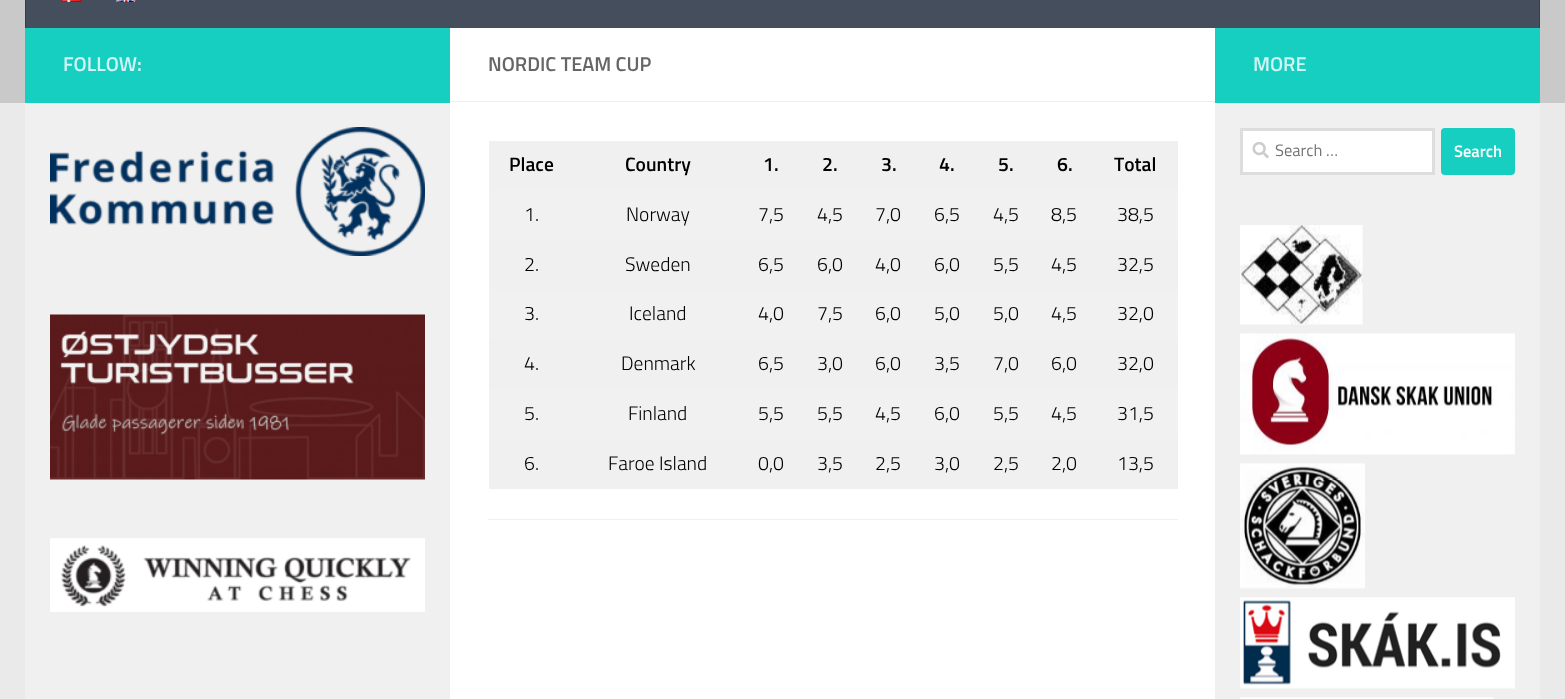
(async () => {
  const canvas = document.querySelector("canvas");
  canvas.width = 1565;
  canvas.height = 699;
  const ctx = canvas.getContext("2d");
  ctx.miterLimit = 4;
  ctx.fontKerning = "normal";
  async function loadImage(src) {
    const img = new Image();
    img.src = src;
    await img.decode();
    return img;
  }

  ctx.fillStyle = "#eaeaea";
  ctx.fillRect(0, 0, 1565, 699);
  for (const [x, y, w, h, color] of [
    [0, 0, 1565, 103, "#c9c9c9"],
    [26, 0, 1513, 28, "#454e5c"],
    [1539, 0, 1, 28, "#373e4a"],
    [25, 0, 1, 28, "#373e4a"],
  ]) {
    ctx.fillStyle = color;
    ctx.fillRect(x, y, w, h);
  }
  ctx.drawImage(await loadImage("img/1.png"), 61, 0, 21, 2);
  ctx.drawImage(await loadImage("img/2.png"), 116, 0, 21, 2);
  for (const [x, y, w, h, color] of [
    [450, 28, 765, 671, "#ffffff"],
    [25, 28, 425, 75, "#16cfc1"],
    [25, 103, 425, 596, "#f0f0f0"],
  ]) {
    ctx.fillStyle = color;
    ctx.fillRect(x, y, w, h);
  }
  ctx.drawImage(await loadImage("img/3.png"), 50, 127, 375, 129);
  ctx.drawImage(await loadImage("img/4.png"), 50, 314, 375, 166);
  ctx.drawImage(await loadImage("img/5.png"), 50, 538, 375, 74);
  for (const [x, y, w, h, color] of [
    [450, 101, 765, 1, "#eeeeee"],
    [488, 519, 690, 1, "#f0f0f0"],
    [489, 141, 689, 49, "#f0f0f0"],
    [489, 190, 689, 50, "#f1f1f1"],
    [489, 240, 689, 50, "#f0f0f0"],
    [489, 290, 689, 50, "#f1f1f1"],
    [489, 340, 689, 49, "#f0f0f0"],
    [489, 389, 689, 50, "#f1f1f1"],
    [489, 439, 689, 50, "#f0f0f0"],
    [1215, 28, 325, 75, "#16cfc1"],
    [1215, 103, 325, 596, "#f0f0f0"],
  ]) {
    ctx.fillStyle = color;
    ctx.fillRect(x, y, w, h);
  }
  ctx.fillStyle = "#ffffff";
  ctx.beginPath();
  ctx.rect(1241.5, 129.5, 192, 44);
  ctx.fill();
  ctx.strokeStyle = "#dddddd";
  ctx.lineWidth = 3;
  ctx.stroke();
  ctx.drawImage(await loadImage("img/6.png"), 1252, 142, 17, 17);
  ctx.fillStyle = "#16cfc1";
  ctx.beginPath();
  ctx.roundRect(1441, 128, 74, 47, 4);
  ctx.fill();
  ctx.drawImage(await loadImage("img/7.png"), 1240, 225, 123, 100);
  ctx.drawImage(await loadImage("img/8.png"), 1240, 333, 275, 122);
  ctx.drawImage(await loadImage("img/9.png"), 1240, 463, 125, 126);
  ctx.drawImage(await loadImage("img/10.png"), 1240, 597, 275, 92);
  ctx.drawImage(await loadImage("img/11.png"), 1240, 697, 254, 2);
  ctx.font = "600 20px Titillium";
  ctx.fillStyle = "#d0f5f3";
  ctx.fillText("FOLLOW:", 63, 71);
  ctx.fillStyle = "#666666";
  ctx.fillText("NORDIC TEAM CUP", 488, 71);
  ctx.font = "600 19.5px Titillium";
  ctx.fillStyle = "#000000";
  for (const [text, x, y] of [
    ["Place", 509, 171],
    ["Country", 625, 171],
    ["1.", 763, 171],
    ["2.", 822, 171],
    ["3.", 881, 171],
    ["4.", 939, 171],
    ["5.", 998, 171],
    ["6.", 1057, 171],
    ["Total", 1114, 171],
  ]) {
    ctx.fillText(text, x, y);
  }
  ctx.font = "300 19.5px Titillium";
  for (const [text, x, y] of [
    ["1.", 524, 221],
    ["Norway", 626, 221],
    ["7,5", 758, 221],
    ["4,5", 817, 221],
    ["7,0", 875, 221],
    ["6,5", 934, 221],
    ["4,5", 993, 221],
    ["8,5", 1051, 221],
    ["38,5", 1117, 221],
    ["2.", 524, 271],
    ["Sweden", 625, 271],
    ["6,5", 758, 271],
    ["6,0", 817, 271],
    ["4,0", 875, 271],
    ["6,0", 934, 271],
    ["5,5", 993, 271],
    ["4,5", 1051, 271],
    ["32,5", 1117, 271],
    ["3.", 524, 320],
    ["Iceland", 629, 320],
    ["4,0", 758, 320],
    ["7,5", 817, 320],
    ["6,0", 875, 320],
    ["5,0", 934, 320],
    ["5,0", 993, 320],
    ["4,5", 1051, 320],
    ["32,0", 1117, 320],
    ["4.", 524, 370],
    ["Denmark", 621, 370],
    ["6,5", 758, 370],
    ["3,0", 817, 370],
    ["6,0", 875, 370],
    ["3,5", 934, 370],
    ["7,0", 993, 370],
    ["6,0", 1051, 370],
    ["32,0", 1117, 370],
    ["5.", 524, 420],
    ["Finland", 628, 420],
    ["5,5", 758, 420],
    ["5,5", 817, 420],
    ["4,5", 875, 420],
    ["6,0", 934, 420],
    ["5,5", 993, 420],
    ["4,5", 1051, 420],
    ["31,5", 1117, 420],
    ["6.", 524, 470],
    ["Faroe Island", 608, 470],
    ["0,0", 758, 470],
    ["3,5", 817, 470],
    ["2,5", 875, 470],
    ["3,0", 934, 470],
    ["2,5", 993, 470],
    ["2,0", 1051, 470],
    ["13,5", 1117, 470],
  ]) {
    ctx.fillText(text, x, y);
  }
  ctx.font = "600 20px Titillium";
  ctx.fillStyle = "#d0f5f3";
  ctx.fillText("MORE", 1253, 71);
  ctx.font = "16.5px Titillium";
  ctx.fillStyle = "#757575";
  ctx.fillText("Search …", 1275, 156);
  ctx.font = "600 16.5px Titillium";
  ctx.fillStyle = "#ffffff";
  ctx.fillText("Search", 1454, 157);
})();
